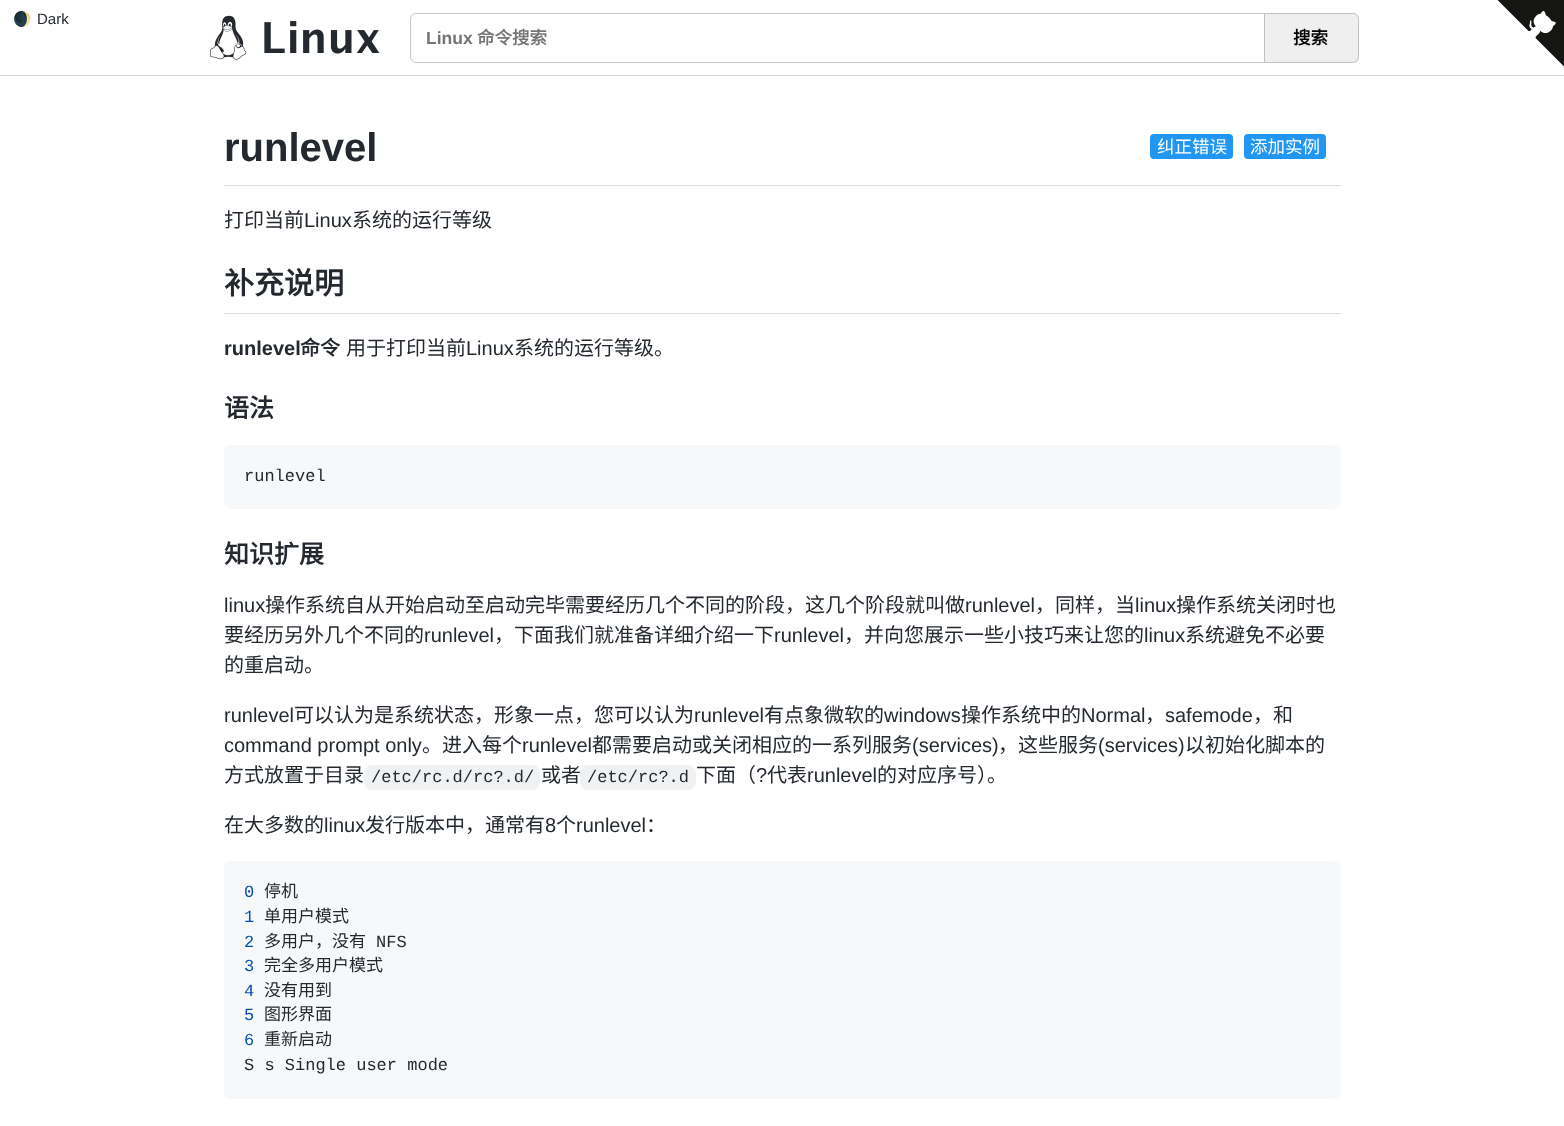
(async () => {
  const canvas = document.querySelector("canvas");
  canvas.width = 1564;
  canvas.height = 1126;
  const ctx = canvas.getContext("2d");
  ctx.miterLimit = 4;
  ctx.fontKerning = "normal";
  async function loadImage(src) {
    const img = new Image();
    img.src = src;
    await img.decode();
    return img;
  }

  ctx.fillStyle = "#ffffff";
  ctx.fillRect(0, 0, 1564, 1126);
  ctx.drawImage(await loadImage("img/1.png"), 1498, 0, 66, 67);
  ctx.fillStyle = "#d3d3d3";
  ctx.fillRect(0, 75, 1564, 1);
  ctx.drawImage(await loadImage("img/2.png"), 210, 15, 170, 45);
  ctx.beginPath();
  ctx.roundRect(410.5, 13.5, 854, 49, [5.5, 0, 0, 5.5]);
  ctx.strokeStyle = "#c9c9c9";
  ctx.stroke();
  ctx.fillStyle = "#efefef";
  ctx.beginPath();
  ctx.roundRect(1264, 13, 95, 50, [0, 6, 6, 0]);
  ctx.fill();
  ctx.beginPath();
  ctx.roundRect(1264.5, 13.5, 94, 49, [0, 5.5, 5.5, 0]);
  ctx.strokeStyle = "rgba(143, 143, 143, 0.48)";
  ctx.stroke();
  ctx.fillStyle = "#d8dee4";
  ctx.fillRect(224, 185, 1117, 1);
  ctx.fillRect(224, 313, 1117, 1);
  ctx.fillStyle = "#f6f8fa";
  ctx.beginPath();
  ctx.roundRect(224, 445, 1117, 64, 8);
  ctx.fill();
  ctx.fillStyle = "#eff1f3";
  ctx.beginPath();
  ctx.roundRect(364, 765, 176, 25, 8);
  ctx.fill();
  ctx.beginPath();
  ctx.roundRect(580, 765, 116, 25, 8);
  ctx.fill();
  ctx.fillStyle = "#f6f8fa";
  ctx.beginPath();
  ctx.roundRect(224, 861, 1117, 238, 8);
  ctx.fill();
  ctx.fillStyle = "#2196f3";
  ctx.beginPath();
  ctx.roundRect(1150, 134, 83, 25, 4);
  ctx.fill();
  ctx.beginPath();
  ctx.roundRect(1244, 134, 82, 25, 4);
  ctx.fill();
  ctx.font = "15px Noto Color Emoji";
  ctx.fillStyle = "#24292f";
  ctx.fillText("🌒", 13, 24);
  ctx.font = "15px Liberation Sans";
  ctx.fillText("Dark", 37, 24);
  ctx.font = "bold 17.5px Liberation Sans";
  ctx.fillStyle = "#757575";
  ctx.fillText("Linux", 426, 44);
  ctx.font = "bold 17.5px Noto Sans CJK SC";
  ctx.fillText("命令搜索", 477, 44);
  ctx.fillStyle = "#000000";
  ctx.fillText("搜索", 1293, 44);
  ctx.font = "bold 40px Liberation Sans";
  ctx.fillStyle = "#24292f";
  ctx.fillText("runlevel", 224, 161);
  ctx.font = "20px Noto Sans CJK SC";
  ctx.fillText("打印当前", 224, 227);
  ctx.font = "20px Liberation Sans";
  ctx.fillText("Linux", 304, 227);
  ctx.font = "20px Noto Sans CJK SC";
  ctx.fillText("系统的运行等级", 352, 227);
  ctx.font = "bold 30px Noto Sans CJK SC";
  ctx.fillText("补充说明", 224, 294);
  ctx.font = "bold 20px Liberation Sans";
  ctx.fillText("runlevel", 224, 355);
  ctx.font = "bold 20px Noto Sans CJK SC";
  ctx.fillText("命令", 300, 355);
  ctx.font = "20px Noto Sans CJK SC";
  ctx.fillText("用于打印当前", 346, 355);
  ctx.font = "20px Liberation Sans";
  ctx.fillText("Linux", 466, 355);
  ctx.font = "20px Noto Sans CJK SC";
  ctx.fillText("系统的运行等级。", 514, 355);
  ctx.font = "bold 25px Noto Sans CJK SC";
  ctx.fillText("语法", 224, 417);
  ctx.font = "17px Liberation Mono";
  ctx.fillText("runlevel", 244, 481);
  ctx.font = "bold 25px Noto Sans CJK SC";
  ctx.fillText("知识扩展", 224, 563);
  ctx.font = "20px Liberation Sans";
  ctx.fillText("linux", 224, 612);
  ctx.font = "20px Noto Sans CJK SC";
  ctx.fillText("操作系统自从开始启动至启动完毕需要经历几个不同的阶段，这几个阶段就叫做", 265, 612);
  ctx.font = "20px Liberation Sans";
  ctx.fillText("runlevel", 965, 612);
  ctx.font = "20px Noto Sans CJK SC";
  ctx.fillText("，同样，当", 1035, 612);
  ctx.font = "20px Liberation Sans";
  ctx.fillText("linux", 1135, 612);
  ctx.font = "20px Noto Sans CJK SC";
  ctx.fillText("操作系统关闭时也", 1176, 612);
  ctx.fillText("要经历另外几个不同的", 224, 642);
  ctx.font = "20px Liberation Sans";
  ctx.fillText("runlevel", 424, 642);
  ctx.font = "20px Noto Sans CJK SC";
  ctx.fillText("，下面我们就准备详细介绍一下", 494, 642);
  ctx.font = "20px Liberation Sans";
  ctx.fillText("runlevel", 774, 642);
  ctx.font = "20px Noto Sans CJK SC";
  ctx.fillText("，并向您展示一些小技巧来让您的", 844, 642);
  ctx.font = "20px Liberation Sans";
  ctx.fillText("linux", 1144, 642);
  ctx.font = "20px Noto Sans CJK SC";
  ctx.fillText("系统避免不必要", 1185, 642);
  ctx.fillText("的重启动。", 224, 672);
  ctx.font = "20px Liberation Sans";
  ctx.fillText("runlevel", 224, 722);
  ctx.font = "20px Noto Sans CJK SC";
  ctx.fillText("可以认为是系统状态，形象一点，您可以认为", 294, 722);
  ctx.font = "20px Liberation Sans";
  ctx.fillText("runlevel", 694, 722);
  ctx.font = "20px Noto Sans CJK SC";
  ctx.fillText("有点象微软的", 764, 722);
  ctx.font = "20px Liberation Sans";
  ctx.fillText("windows", 884, 722);
  ctx.font = "20px Noto Sans CJK SC";
  ctx.fillText("操作系统中的", 961, 722);
  ctx.font = "20px Liberation Sans";
  ctx.fillText("Normal", 1081, 722);
  ctx.font = "20px Noto Sans CJK SC";
  ctx.fillText("，", 1145, 722);
  ctx.font = "20px Liberation Sans";
  ctx.fillText("safemode", 1165, 722);
  ctx.font = "20px Noto Sans CJK SC";
  ctx.fillText("，和", 1253, 722);
  ctx.font = "20px Liberation Sans";
  ctx.fillText("command prompt only", 224, 752);
  ctx.font = "20px Noto Sans CJK SC";
  ctx.fillText("。进入每个", 422, 752);
  ctx.font = "20px Liberation Sans";
  ctx.fillText("runlevel", 522, 752);
  ctx.font = "20px Noto Sans CJK SC";
  ctx.fillText("都需要启动或关闭相应的一系列服务", 592, 752);
  ctx.font = "20px Liberation Sans";
  ctx.fillText("(services)", 912, 752);
  ctx.font = "20px Noto Sans CJK SC";
  ctx.fillText("，这些服务", 998, 752);
  ctx.font = "20px Liberation Sans";
  ctx.fillText("(services)", 1098, 752);
  ctx.font = "20px Noto Sans CJK SC";
  ctx.fillText("以初始化脚本的", 1185, 752);
  ctx.fillText("方式放置于目录", 224, 782);
  ctx.font = "17px Liberation Mono";
  ctx.fillText("/etc/rc.d/rc?.d/", 371, 782);
  ctx.font = "20px Noto Sans CJK SC";
  ctx.fillText("或者", 541, 782);
  ctx.font = "17px Liberation Mono";
  ctx.fillText("/etc/rc?.d", 587, 782);
  ctx.font = "20px Noto Sans CJK SC";
  ctx.fillText("下面（", 696, 782);
  ctx.font = "20px Liberation Sans";
  ctx.fillText("?", 756, 782);
  ctx.font = "20px Noto Sans CJK SC";
  ctx.fillText("代表", 767, 782);
  ctx.font = "20px Liberation Sans";
  ctx.fillText("runlevel", 807, 782);
  ctx.font = "20px Noto Sans CJK SC";
  ctx.fillText("的对应序号）。", 877, 782);
  ctx.fillText("在大多数的", 224, 832);
  ctx.font = "20px Liberation Sans";
  ctx.fillText("linux", 324, 832);
  ctx.font = "20px Noto Sans CJK SC";
  ctx.fillText("发行版本中，通常有", 365, 832);
  ctx.font = "20px Liberation Sans";
  ctx.fillText("8", 545, 832);
  ctx.font = "20px Noto Sans CJK SC";
  ctx.fillText("个", 556, 832);
  ctx.font = "20px Liberation Sans";
  ctx.fillText("runlevel", 576, 832);
  ctx.font = "20px Noto Sans CJK SC";
  ctx.fillText("：", 646, 832);
  ctx.font = "17px Liberation Mono";
  ctx.fillStyle = "#0550ae";
  ctx.fillText("0", 244, 897);
  ctx.font = "17px Noto Sans CJK SC";
  ctx.fillStyle = "#24292f";
  ctx.fillText("停机", 264, 897);
  ctx.font = "17px Liberation Mono";
  ctx.fillStyle = "#0550ae";
  ctx.fillText("1", 244, 922);
  ctx.font = "17px Noto Sans CJK SC";
  ctx.fillStyle = "#24292f";
  ctx.fillText("单用户模式", 264, 922);
  ctx.font = "17px Liberation Mono";
  ctx.fillStyle = "#0550ae";
  ctx.fillText("2", 244, 947);
  ctx.font = "17px Noto Sans CJK SC";
  ctx.fillStyle = "#24292f";
  ctx.fillText("多用户，没有", 264, 947);
  ctx.font = "17px Liberation Mono";
  ctx.fillText("NFS", 376, 947);
  ctx.fillStyle = "#0550ae";
  ctx.fillText("3", 244, 971);
  ctx.font = "17px Noto Sans CJK SC";
  ctx.fillStyle = "#24292f";
  ctx.fillText("完全多用户模式", 264, 971);
  ctx.font = "17px Liberation Mono";
  ctx.fillStyle = "#0550ae";
  ctx.fillText("4", 244, 996);
  ctx.font = "17px Noto Sans CJK SC";
  ctx.fillStyle = "#24292f";
  ctx.fillText("没有用到", 264, 996);
  ctx.font = "17px Liberation Mono";
  ctx.fillStyle = "#0550ae";
  ctx.fillText("5", 244, 1020);
  ctx.font = "17px Noto Sans CJK SC";
  ctx.fillStyle = "#24292f";
  ctx.fillText("图形界面", 264, 1020);
  ctx.font = "17px Liberation Mono";
  ctx.fillStyle = "#0550ae";
  ctx.fillText("6", 244, 1045);
  ctx.font = "17px Noto Sans CJK SC";
  ctx.fillStyle = "#24292f";
  ctx.fillText("重新启动", 264, 1045);
  ctx.font = "17px Liberation Mono";
  ctx.fillText("S s Single user mode", 244, 1070);
  ctx.font = "17.5px Noto Sans CJK SC";
  ctx.fillStyle = "#ffffff";
  ctx.fillText("纠正错误", 1157, 153);
  ctx.fillText("添加实例", 1250, 153);
})();
